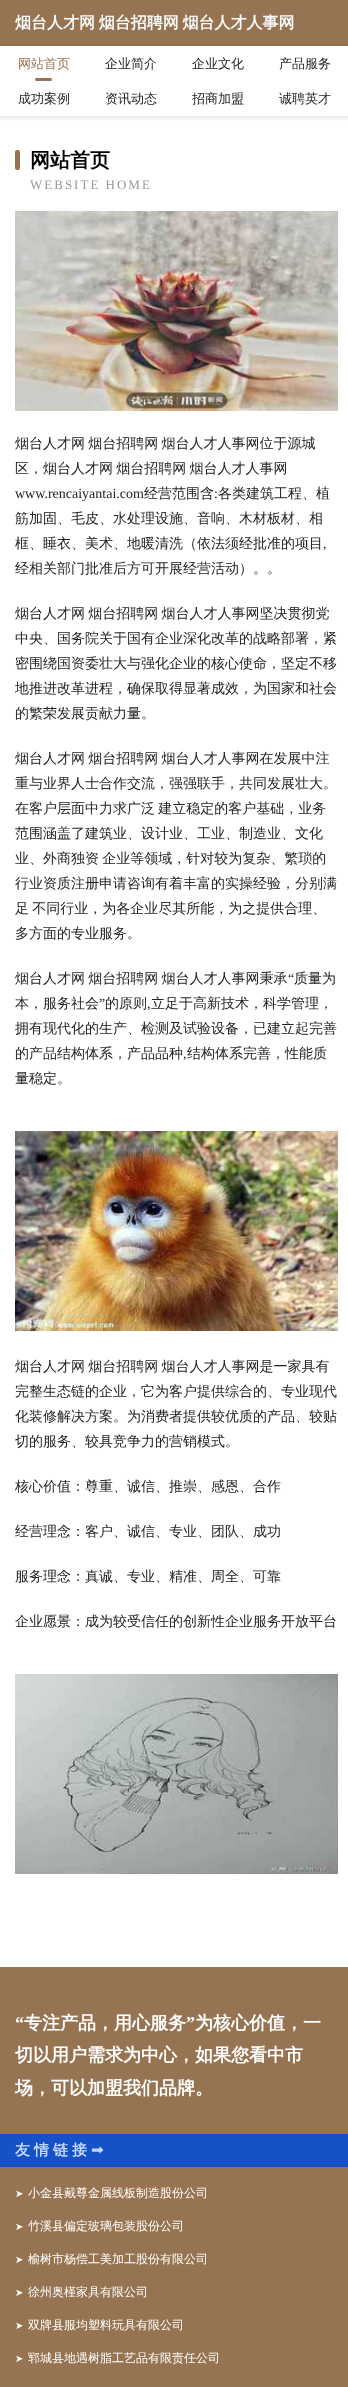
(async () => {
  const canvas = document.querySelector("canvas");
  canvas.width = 348;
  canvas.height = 2387;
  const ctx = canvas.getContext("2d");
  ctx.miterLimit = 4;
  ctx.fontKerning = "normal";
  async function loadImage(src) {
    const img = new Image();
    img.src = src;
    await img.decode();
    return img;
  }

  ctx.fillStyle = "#ffffff";
  ctx.fillRect(0, 0, 348, 2387);
  ctx.fillStyle = "#977451";
  ctx.fillRect(0, 0, 348, 46);
  ctx.fillStyle = "rgba(0, 0, 0, 0.08)";
  ctx.filter = "blur(1.5px)";
  ctx.beginPath();
  ctx.rect(-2, 45, 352, 74);
  ctx.fill();
  ctx.filter = "none";
  ctx.fillStyle = "#ffffff";
  ctx.fillRect(0, 46, 348, 70);
  ctx.fillStyle = "#977451";
  ctx.beginPath();
  ctx.roundRect(35, 78, 17, 3, 1.5);
  ctx.fill();
  ctx.beginPath();
  ctx.roundRect(15, 150, 5, 20, 2);
  ctx.fill();
  ctx.drawImage(await loadImage("img/1.png"), 15, 211, 323, 200);
  ctx.drawImage(await loadImage("img/2.png"), 15, 1131, 323, 200);
  ctx.drawImage(await loadImage("img/3.png"), 15, 1674, 323, 200);
  ctx.fillRect(0, 1967, 348, 420);
  ctx.fillStyle = "#1552c8";
  ctx.fillRect(0, 2134, 348, 33);
  ctx.wordSpacing = "-1px";
  ctx.font = "bold 16px WenQuanYi Zen Hei";
  ctx.fillStyle = "#f9f9f9";
  ctx.fillText("烟台人才网 烟台招聘网 烟台人才人事网", 15, 28);
  ctx.wordSpacing = "0px";
  ctx.font = "500 13px WenQuanYi Zen Hei";
  ctx.fillStyle = "#977451";
  ctx.fillText("网站首页", 18, 68);
  ctx.fillStyle = "#232323";
  for (const [text, x, y] of [
    ["企业简介", 105, 68],
    ["企业文化", 192, 68],
    ["产品服务", 279, 68],
    ["成功案例", 18, 103],
    ["资讯动态", 105, 103],
    ["招商加盟", 192, 103],
    ["诚聘英才", 279, 103],
  ]) {
    ctx.fillText(text, x, y);
  }
  ctx.font = "bold 20px WenQuanYi Zen Hei";
  ctx.fillStyle = "#000000";
  ctx.fillText("网站首页", 30, 167);
  ctx.letterSpacing = "2px";
  ctx.font = "13px Liberation Serif";
  ctx.fillStyle = "#989898";
  ctx.fillText("WEBSITE HOME", 30, 189);
  ctx.letterSpacing = "0px";
  ctx.wordSpacing = "-1px";
  ctx.font = "500 14px WenQuanYi Zen Hei";
  ctx.fillStyle = "#232323";
  ctx.fillText("烟台人才网 烟台招聘网 烟台人才人事网位于源城", 15, 448);
  ctx.fillText("区，烟台人才网 烟台招聘网 烟台人才人事网", 15, 473);
  ctx.wordSpacing = "0px";
  ctx.font = "14px Liberation Serif";
  ctx.fillText("www.rencaiyantai.com", 15, 498);
  ctx.font = "500 14px WenQuanYi Zen Hei";
  ctx.fillText("经营范围含", 144, 498);
  ctx.font = "14px Liberation Serif";
  ctx.fillText(":", 214, 498);
  ctx.font = "500 14px WenQuanYi Zen Hei";
  for (const [text, x, y] of [
    ["各类建筑工程、植", 218, 498],
    ["筋加固、毛皮、水处理设施、音响、木材板材、相", 15, 523],
    ["框、睡衣、美术、地暖清洗（依法须经批准的项目", 15, 548],
  ]) {
    ctx.fillText(text, x, y);
  }
  ctx.font = "14px Liberation Serif";
  ctx.fillText(",", 323, 548);
  ctx.font = "500 14px WenQuanYi Zen Hei";
  ctx.fillText("经相关部门批准后方可开展经营活动）。。", 15, 573);
  ctx.wordSpacing = "-1px";
  ctx.fillText("烟台人才网 烟台招聘网 烟台人才人事网坚决贯彻党", 15, 618);
  ctx.wordSpacing = "0px";
  for (const [text, x, y] of [
    ["中央、国务院关于国有企业深化改革的战略部署，紧", 15, 643],
    ["密围绕国资委壮大与强化企业的核心使命，坚定不移", 15, 668],
    ["地推进改革进程，确保取得显著成效，为国家和社会", 15, 693],
    ["的繁荣发展贡献力量。", 15, 718],
  ]) {
    ctx.fillText(text, x, y);
  }
  ctx.wordSpacing = "-1px";
  ctx.fillText("烟台人才网 烟台招聘网 烟台人才人事网在发展中注", 15, 763);
  ctx.wordSpacing = "0px";
  ctx.fillText("重与业界人士合作交流，强强联手，共同发展壮大。", 15, 788);
  ctx.wordSpacing = "-1px";
  ctx.fillText("在客户层面中力求广泛 建立稳定的客户基础，业务", 15, 813);
  ctx.wordSpacing = "0px";
  ctx.fillText("范围涵盖了建筑业、设计业、工业、制造业、文化", 15, 838);
  ctx.wordSpacing = "-1px";
  ctx.fillText("业、外商独资 企业等领域，针对较为复杂、繁琐的", 15, 863);
  ctx.wordSpacing = "0px";
  ctx.fillText("行业资质注册申请咨询有着丰富的实操经验，分别满", 15, 888);
  ctx.wordSpacing = "-1px";
  ctx.fillText("足 不同行业，为各企业尽其所能，为之提供合理、", 15, 913);
  ctx.wordSpacing = "0px";
  ctx.fillText("多方面的专业服务。", 15, 938);
  ctx.wordSpacing = "-1px";
  ctx.fillText("烟台人才网 烟台招聘网 烟台人才人事网秉承", 15, 983);
  ctx.wordSpacing = "0px";
  ctx.font = "14px Liberation Serif";
  ctx.fillText("“", 288, 983);
  ctx.font = "500 14px WenQuanYi Zen Hei";
  ctx.fillText("质量为", 294, 983);
  ctx.fillText("本，服务社会", 15, 1008);
  ctx.font = "14px Liberation Serif";
  ctx.fillText("”", 99, 1008);
  ctx.font = "500 14px WenQuanYi Zen Hei";
  ctx.fillText("的原则", 105, 1008);
  ctx.fillText("立足于高新技术，科学管理，", 151, 1008);
  ctx.font = "14px Liberation Serif";
  ctx.fillText(",", 147, 1008);
  ctx.font = "500 14px WenQuanYi Zen Hei";
  ctx.fillText("拥有现代化的生产、检测及试验设备，已建立起完善", 15, 1033);
  ctx.fillText("的产品结构体系，产品品种", 15, 1058);
  ctx.font = "14px Liberation Serif";
  ctx.fillText(",", 183, 1058);
  ctx.font = "500 14px WenQuanYi Zen Hei";
  ctx.fillText("结构体系完善，性能质", 187, 1058);
  ctx.fillText("量稳定。", 15, 1083);
  ctx.wordSpacing = "-1px";
  ctx.fillText("烟台人才网 烟台招聘网 烟台人才人事网是一家具有", 15, 1371);
  ctx.wordSpacing = "0px";
  for (const [text, x, y] of [
    ["完整生态链的企业，它为客户提供综合的、专业现代", 15, 1396],
    ["化装修解决方案。为消费者提供较优质的产品、较贴", 15, 1421],
    ["切的服务、较具竞争力的营销模式。", 15, 1446],
    ["核心价值：尊重、诚信、推崇、感恩、合作", 15, 1491],
    ["经营理念：客户、诚信、专业、团队、成功", 15, 1536],
    ["服务理念：真诚、专业、精准、周全、可靠", 15, 1581],
    ["企业愿景：成为较受信任的创新性企业服务开放平台", 15, 1626],
  ]) {
    ctx.fillText(text, x, y);
  }
  ctx.font = "bold 18px Liberation Serif";
  ctx.fillStyle = "#ffffff";
  ctx.fillText("“", 15, 2029);
  ctx.font = "bold 18px WenQuanYi Zen Hei";
  ctx.fillText("专注产品，用心服务", 24, 2029);
  ctx.font = "bold 18px Liberation Serif";
  ctx.fillText("”", 186, 2029);
  ctx.font = "bold 18px WenQuanYi Zen Hei";
  for (const [text, x, y] of [
    ["为核心价值，一", 195, 2029],
    ["切以用户需求为中心，如果您看中市", 15, 2061],
    ["场，可以加盟我们品牌。", 15, 2094],
  ]) {
    ctx.fillText(text, x, y);
  }
  ctx.letterSpacing = "4px";
  ctx.font = "bold 15px WenQuanYi Zen Hei";
  ctx.fillStyle = "#c6d9ff";
  ctx.fillText("友情链接", 15, 2155);
  ctx.font = "bold 15px DejaVu Sans";
  ctx.fillText("➟", 91, 2155);
  ctx.letterSpacing = "0px";
  ctx.font = "10px DejaVu Sans";
  ctx.fillStyle = "#ffffff";
  ctx.fillText("➤", 15, 2197);
  ctx.font = "500 12px WenQuanYi Zen Hei";
  ctx.fillText("小金县戴尊金属线板制造股份公司", 28, 2197);
  ctx.font = "10px DejaVu Sans";
  ctx.fillText("➤", 15, 2230);
  ctx.font = "500 12px WenQuanYi Zen Hei";
  ctx.fillText("竹溪县偏定玻璃包装股份公司", 28, 2230);
  ctx.font = "10px DejaVu Sans";
  ctx.fillText("➤", 15, 2263);
  ctx.font = "500 12px WenQuanYi Zen Hei";
  ctx.fillText("榆树市杨偿工美加工股份有限公司", 28, 2263);
  ctx.font = "10px DejaVu Sans";
  ctx.fillText("➤", 15, 2296);
  ctx.font = "500 12px WenQuanYi Zen Hei";
  ctx.fillText("徐州奥槿家具有限公司", 28, 2296);
  ctx.font = "10px DejaVu Sans";
  ctx.fillText("➤", 15, 2329);
  ctx.font = "500 12px WenQuanYi Zen Hei";
  ctx.fillText("双牌县服均塑料玩具有限公司", 28, 2329);
  ctx.font = "10px DejaVu Sans";
  ctx.fillText("➤", 15, 2362);
  ctx.font = "500 12px WenQuanYi Zen Hei";
  ctx.fillText("郓城县地遇树脂工艺品有限责任公司", 28, 2362);
})();
